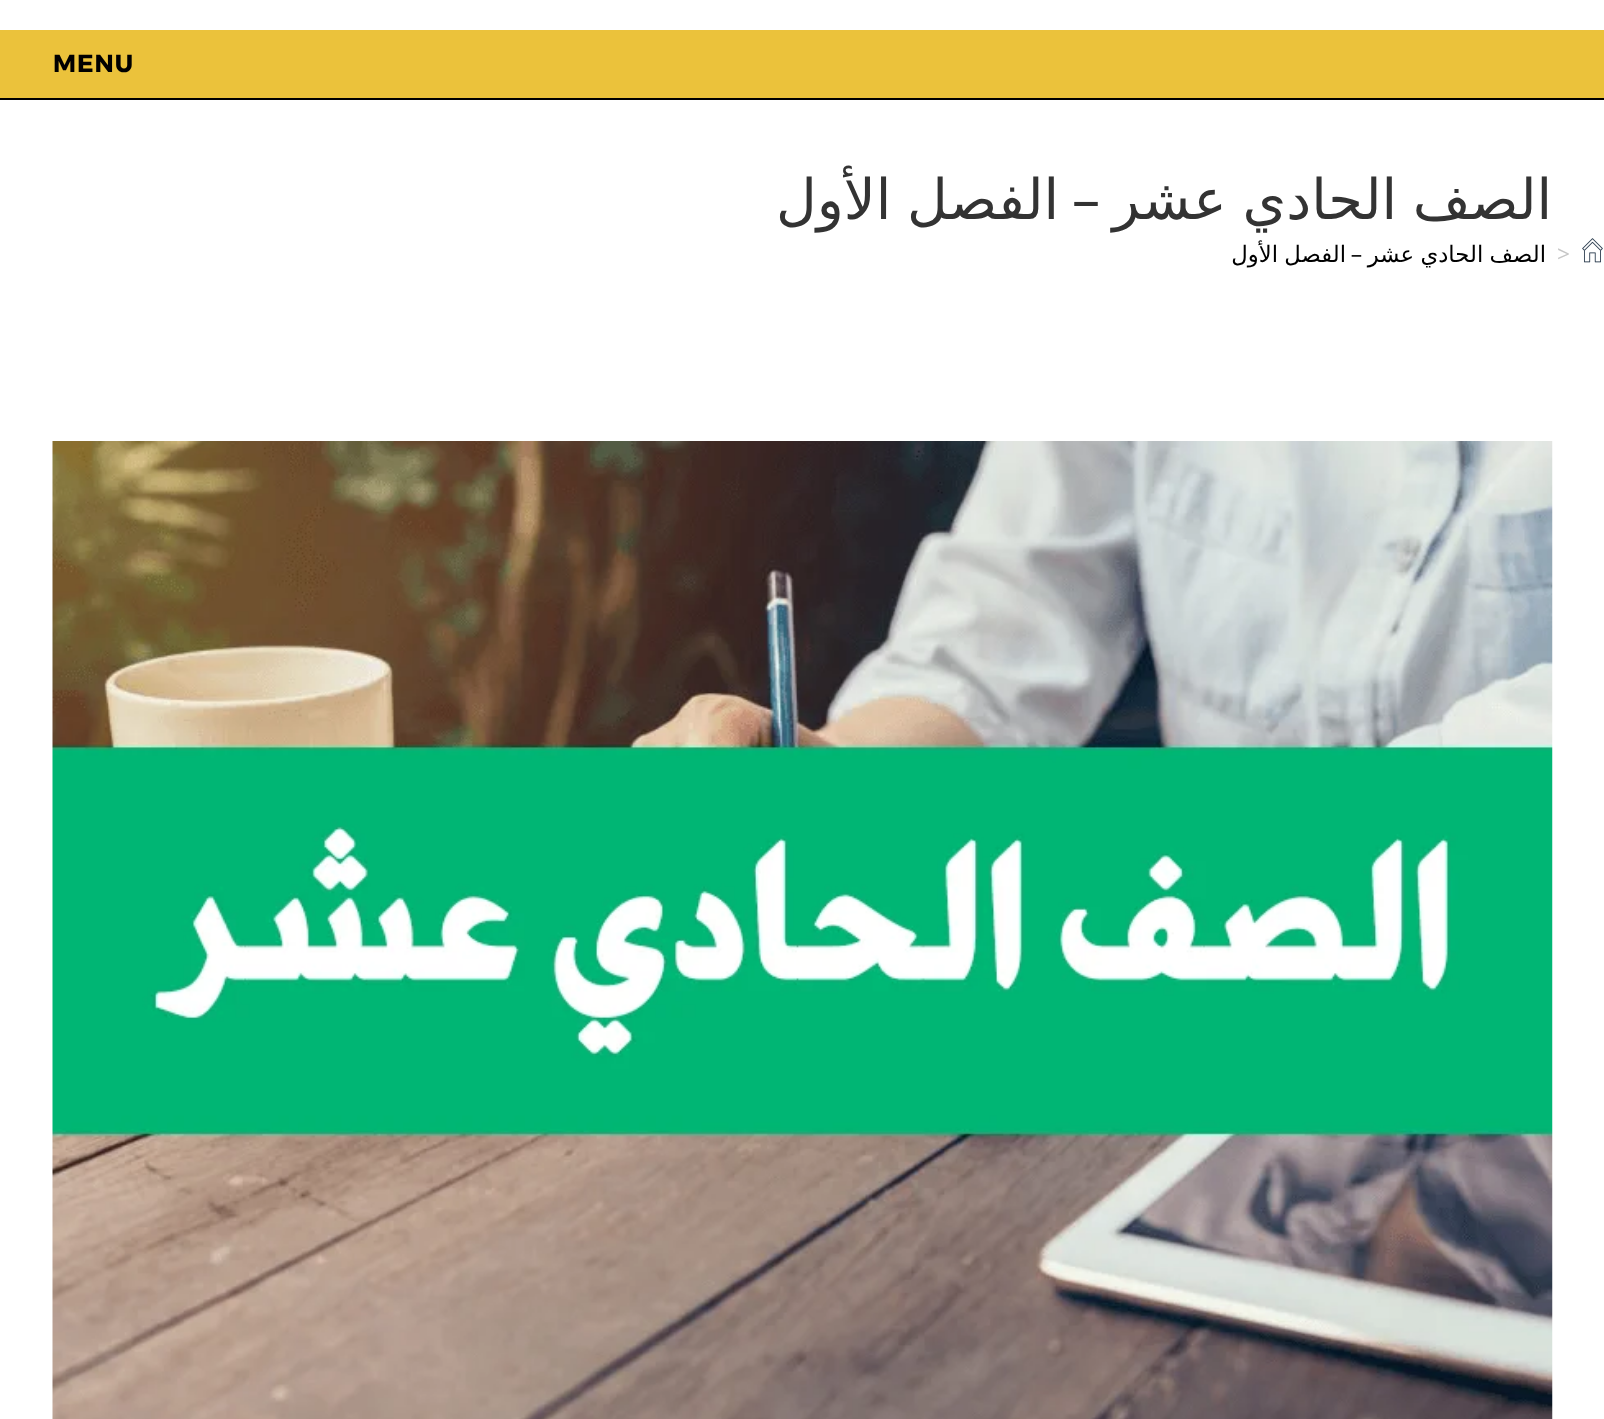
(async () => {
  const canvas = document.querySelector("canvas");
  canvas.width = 1604;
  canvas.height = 1419;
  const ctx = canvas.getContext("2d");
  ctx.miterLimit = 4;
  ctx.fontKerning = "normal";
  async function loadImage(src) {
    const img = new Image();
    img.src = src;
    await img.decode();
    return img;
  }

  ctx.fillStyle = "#ffffff";
  ctx.fillRect(0, 0, 1604, 1419);
  ctx.fillStyle = "#ebc23b";
  ctx.fillRect(0, 30, 1604, 68);
  ctx.fillStyle = "#000000";
  ctx.fillRect(0, 98, 1604, 2);
  ctx.drawImage(await loadImage("img/1.png"), 1582, 238, 21, 25);
  ctx.drawImage(await loadImage("img/2.png"), 52, 441, 1501, 978);
  ctx.letterSpacing = "1px";
  ctx.font = "bold 24.5px Alexandria";
  ctx.fillText("MENU", 53, 72);
  ctx.letterSpacing = "0px";
  ctx.wordSpacing = "-2px";
  ctx.direction = "rtl";
  ctx.font = "56px DejaVu Sans";
  ctx.fillStyle = "#333333";
  ctx.fillText("الصف الحادي عشر", 1552, 219);
  ctx.wordSpacing = "0px";
  ctx.font = "56px Open Sans";
  ctx.fillText("–", 1100, 219);
  ctx.wordSpacing = "-2px";
  ctx.font = "56px DejaVu Sans";
  ctx.fillText("الفصل الأول", 1059, 219);
  ctx.wordSpacing = "0px";
  ctx.direction = "ltr";
  ctx.font = "22.75px Open Sans";
  ctx.fillStyle = "#c6c6c6";
  ctx.fillText(">", 1557, 262);
  ctx.wordSpacing = "-1px";
  ctx.direction = "rtl";
  ctx.font = "22.75px DejaVu Sans";
  ctx.fillStyle = "#000000";
  ctx.fillText("الصف الحادي عشر", 1546, 262);
  ctx.wordSpacing = "0px";
  ctx.font = "22.75px Open Sans";
  ctx.fillText("–", 1362, 262);
  ctx.wordSpacing = "-1px";
  ctx.font = "22.75px DejaVu Sans";
  ctx.fillText("الفصل الأول", 1346, 262);
})();
